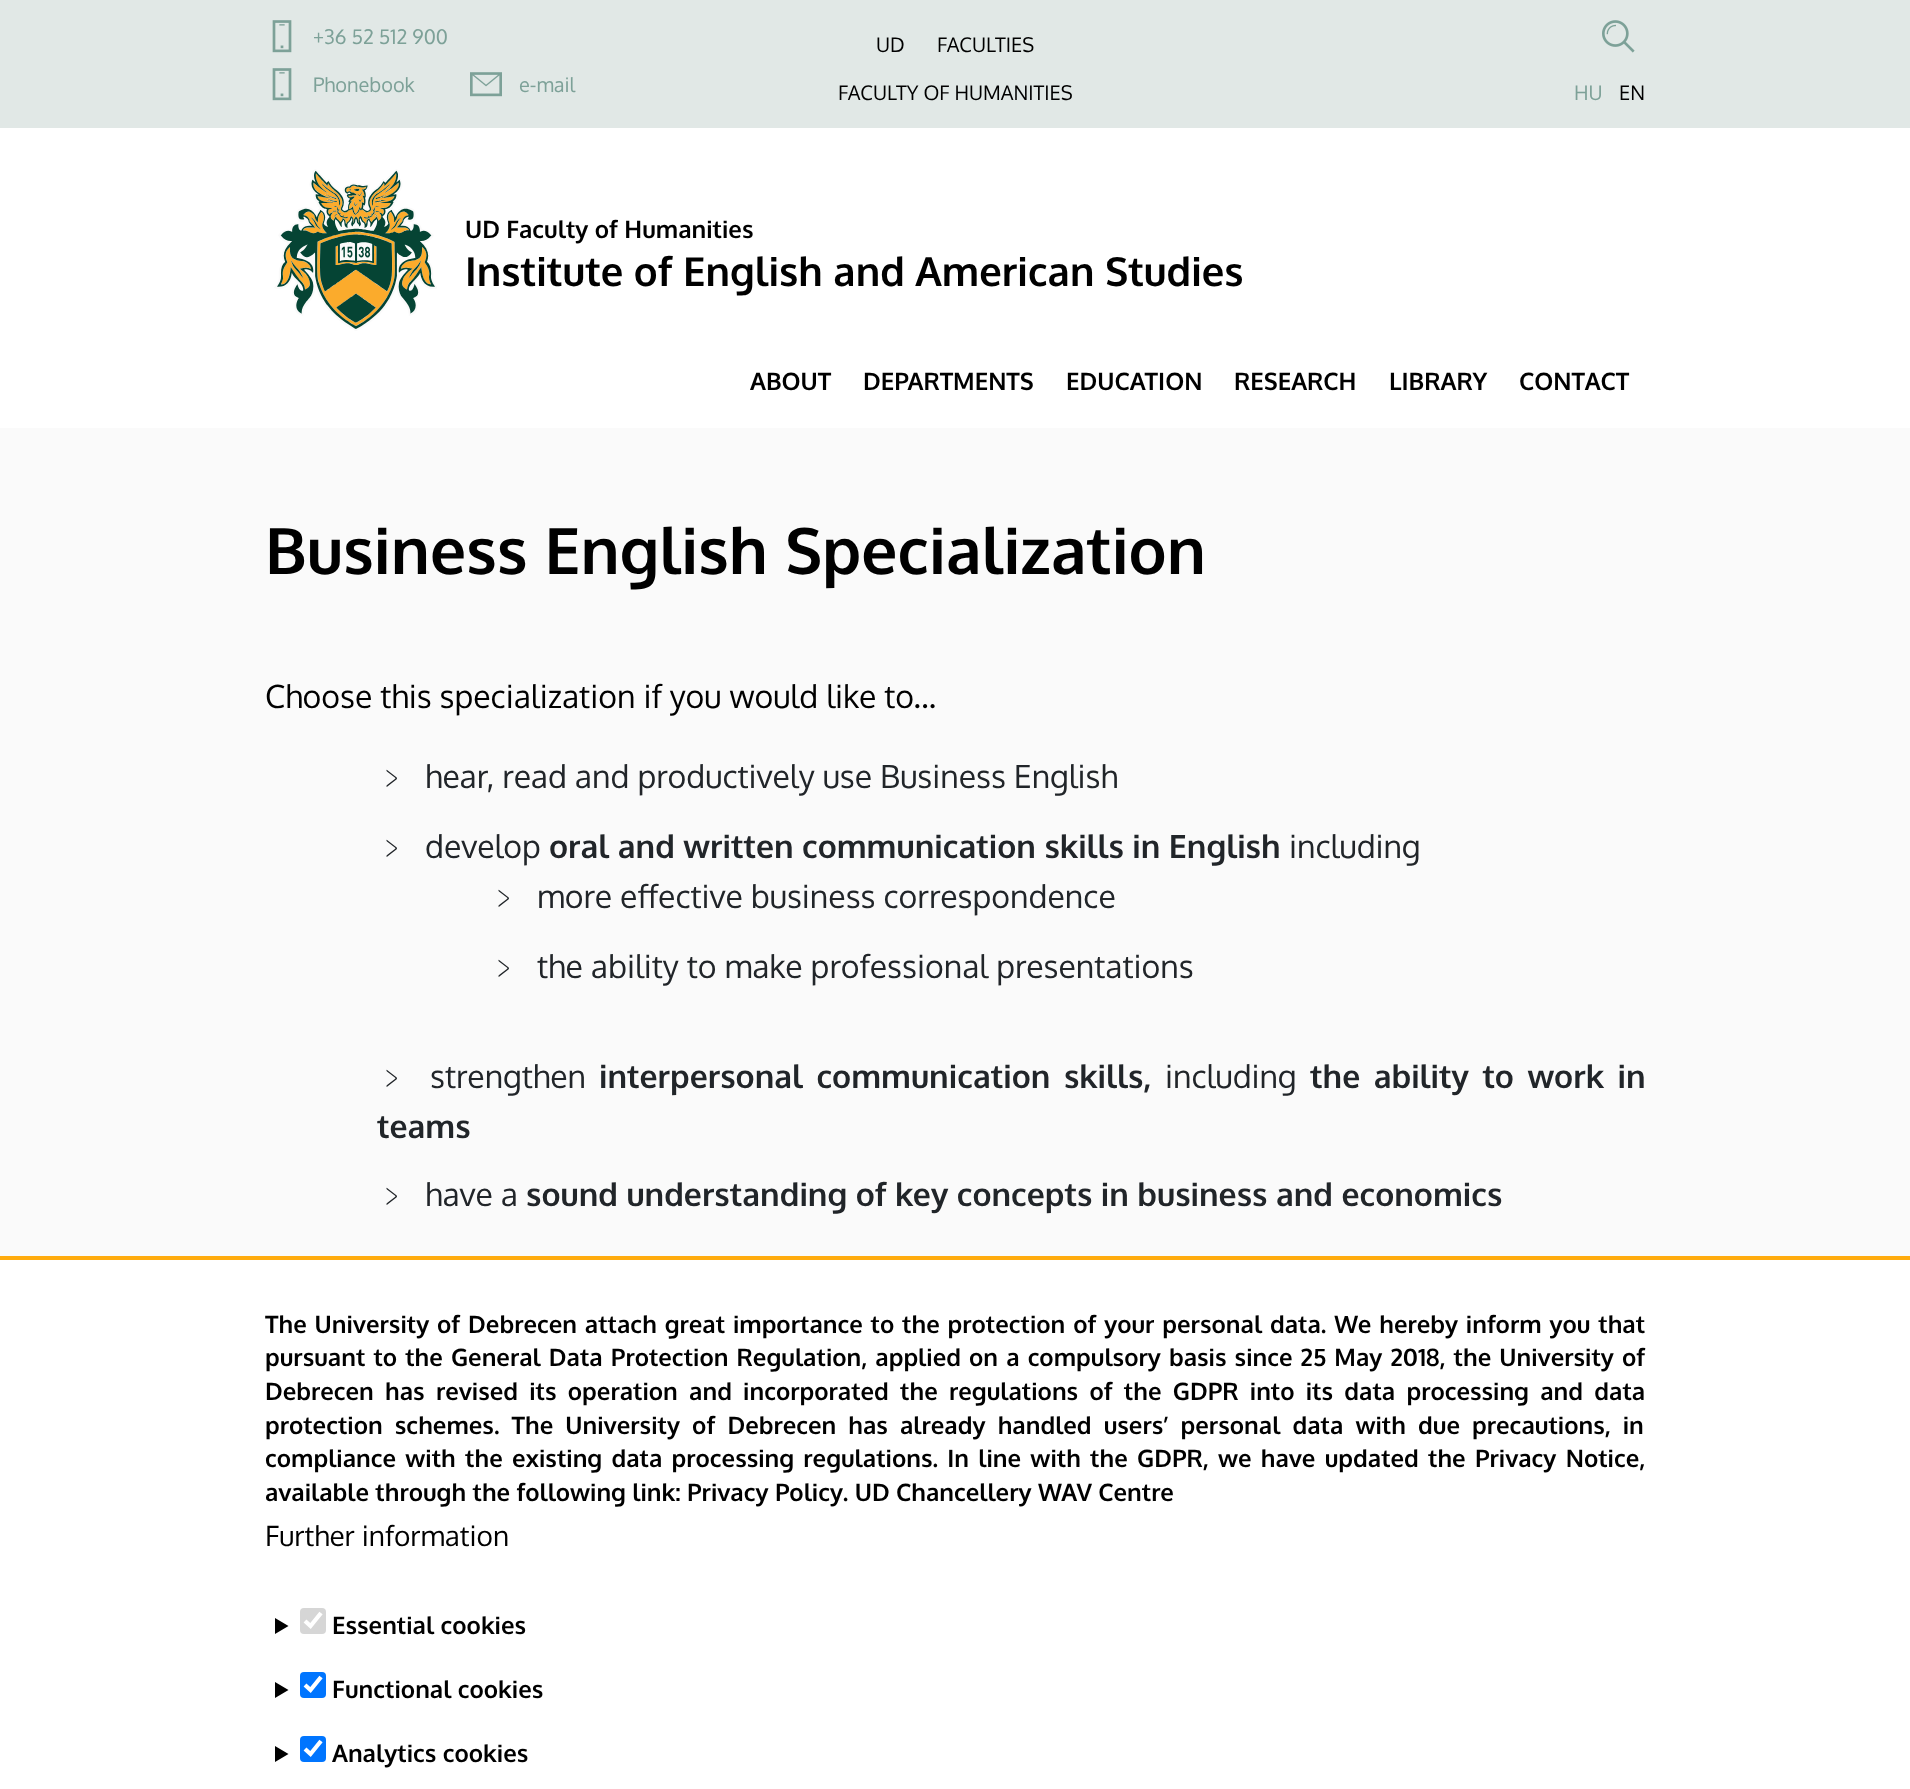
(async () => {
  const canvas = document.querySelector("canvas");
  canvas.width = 1910;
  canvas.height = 1789;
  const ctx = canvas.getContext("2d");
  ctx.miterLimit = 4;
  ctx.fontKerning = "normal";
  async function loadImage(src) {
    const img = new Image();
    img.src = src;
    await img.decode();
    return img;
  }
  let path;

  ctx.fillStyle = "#fafafa";
  ctx.fillRect(0, 0, 1910, 1789);
  ctx.fillStyle = "#e1e8e6";
  ctx.fillRect(0, 0, 1910, 128);
  ctx.drawImage(await loadImage("img/1.png"), 272, 20, 20, 33);
  ctx.drawImage(await loadImage("img/1.png"), 272, 68, 20, 33);
  ctx.drawImage(await loadImage("img/2.png"), 470, 72, 32, 25);
  ctx.drawImage(await loadImage("img/3.png"), 1602, 20, 33, 33);
  ctx.fillStyle = "#ffffff";
  ctx.fillRect(0, 128, 1910, 300);
  ctx.drawImage(await loadImage("img/4.png"), 274, 169, 163, 162);
  ctx.fillRect(0, 1260, 1910, 529);
  ctx.fillStyle = "#ffab0d";
  ctx.fillRect(0, 1256, 1910, 4);
  ctx.fillStyle = "#000000";
  path = new Path2D("M275 1618L288.5 1626L275 1634Z");
  ctx.fill(path);
  ctx.fillStyle = "#d6d6d6";
  ctx.beginPath();
  ctx.roundRect(300, 1608, 26, 26, 4);
  ctx.fill();
  path = new Path2D("M305 1621L310.5 1626L321 1613");
  ctx.strokeStyle = "#ffffff";
  ctx.lineWidth = 4.2;
  ctx.stroke(path);
  ctx.fillStyle = "#000000";
  path = new Path2D("M275 1682L288.5 1690L275 1698Z");
  ctx.fill(path);
  ctx.fillStyle = "#0075ff";
  ctx.beginPath();
  ctx.roundRect(300, 1672, 26, 26, 4);
  ctx.fill();
  path = new Path2D("M305 1685L310.5 1690L321 1677");
  ctx.stroke(path);
  ctx.fillStyle = "#000000";
  path = new Path2D("M275 1746L288.5 1754L275 1762Z");
  ctx.fill(path);
  ctx.fillStyle = "#0075ff";
  ctx.beginPath();
  ctx.roundRect(300, 1736, 26, 26, 4);
  ctx.fill();
  path = new Path2D("M305 1749L310.5 1754L321 1741");
  ctx.stroke(path);
  ctx.font = "20px Oxygen";
  ctx.fillStyle = "#7da198";
  for (const [text, x, y] of [
    ["+36 52 512 900", 313, 44],
    ["Phonebook", 313, 92],
    ["e-mail", 519, 92],
  ]) {
    ctx.fillText(text, x, y);
  }
  ctx.fillStyle = "#000000";
  for (const [text, x, y] of [
    ["UD", 876, 52],
    ["FACULTIES", 937, 52],
    ["FACULTY OF HUMANITIES", 838, 100],
  ]) {
    ctx.fillText(text, x, y);
  }
  ctx.fillStyle = "#7da198";
  ctx.fillText("HU", 1574, 100);
  ctx.fillStyle = "#000000";
  ctx.fillText("EN", 1619, 100);
  ctx.font = "bold 24px Oxygen";
  ctx.fillText("UD Faculty of Humanities", 465, 238);
  ctx.font = "bold 40px Oxygen";
  ctx.fillText("Institute of English and American Studies", 465, 286);
  ctx.font = "bold 24px Oxygen";
  for (const [text, x, y] of [
    ["ABOUT", 750, 390],
    ["DEPARTMENTS", 863, 390],
    ["EDUCATION", 1066, 390],
    ["RESEARCH", 1234, 390],
    ["LIBRARY", 1389, 390],
    ["CONTACT", 1519, 390],
  ]) {
    ctx.fillText(text, x, y);
  }
  ctx.font = "bold 64px Oxygen";
  ctx.fillText("Business English Specialization", 265, 574);
  ctx.font = "32px Oxygen";
  ctx.fillText("Choose this specialization if you would like to...", 265, 708);
  ctx.font = "500 32px WenQuanYi Zen Hei";
  ctx.fillStyle = "#212529";
  ctx.fillText("﹥", 377, 788);
  ctx.font = "32px Oxygen";
  ctx.fillText("hear, read and productively use Business English", 425, 788);
  ctx.font = "500 32px WenQuanYi Zen Hei";
  ctx.fillText("﹥", 377, 858);
  ctx.font = "32px Oxygen";
  ctx.fillText("develop", 425, 858);
  ctx.font = "bold 32px Oxygen";
  ctx.fillText("oral and written communication skills in English", 549, 858);
  ctx.font = "32px Oxygen";
  ctx.fillText("including", 1289, 858);
  ctx.font = "500 32px WenQuanYi Zen Hei";
  ctx.fillText("﹥", 489, 908);
  ctx.font = "32px Oxygen";
  ctx.fillText("more effective business correspondence", 537, 908);
  ctx.font = "500 32px WenQuanYi Zen Hei";
  ctx.fillText("﹥", 489, 978);
  ctx.font = "32px Oxygen";
  ctx.fillText("the ability to make professional presentations", 537, 978);
  ctx.font = "500 32px WenQuanYi Zen Hei";
  ctx.fillText("﹥", 377, 1088);
  ctx.font = "32px Oxygen";
  ctx.fillText("strengthen", 430, 1088);
  ctx.wordSpacing = "5px";
  ctx.font = "bold 32px Oxygen";
  ctx.fillText("interpersonal communication skills,", 599, 1088);
  ctx.wordSpacing = "0px";
  ctx.font = "32px Oxygen";
  ctx.fillText("including", 1165, 1088);
  ctx.wordSpacing = "5px";
  ctx.font = "bold 32px Oxygen";
  ctx.fillText("the ability to work in", 1310, 1088);
  ctx.wordSpacing = "0px";
  ctx.fillText("teams", 377, 1138);
  ctx.font = "500 32px WenQuanYi Zen Hei";
  ctx.fillText("﹥", 377, 1206);
  ctx.font = "32px Oxygen";
  ctx.fillText("have a", 425, 1206);
  ctx.font = "bold 32px Oxygen";
  ctx.fillText("sound understanding of key concepts in business and economics", 526, 1206);
  ctx.wordSpacing = "1.5px";
  ctx.font = "bold 24px Oxygen";
  ctx.fillStyle = "#000000";
  ctx.fillText("The University of Debrecen attach great importance to the protection of your personal data. We hereby inform you that", 265, 1333);
  ctx.wordSpacing = "1.75px";
  ctx.fillText("pursuant to the General Data Protection Regulation, applied on a compulsory basis since 25 May 2018, the University of", 265, 1366);
  ctx.wordSpacing = "4.9px";
  ctx.fillText("Debrecen has revised its operation and incorporated the regulations of the GDPR into its data processing and data", 265, 1400);
  ctx.wordSpacing = "5.75px";
  ctx.fillText("protection schemes. The University of Debrecen has already handled users’ personal data with due precautions, in", 265, 1434);
  ctx.wordSpacing = "2.9px";
  ctx.fillText("compliance with the existing data processing regulations. In line with the GDPR, we have updated the Privacy Notice,", 265, 1467);
  ctx.wordSpacing = "0px";
  ctx.fillText("available through the following link: Privacy Policy. UD Chancellery WAV Centre", 265, 1501);
  ctx.font = "28px Oxygen";
  ctx.fillText("Further information", 265, 1546);
  ctx.font = "bold 24px Oxygen";
  for (const [text, x, y] of [
    ["Essential cookies", 332, 1634],
    ["Functional cookies", 332, 1698],
    ["Analytics cookies", 332, 1762],
  ]) {
    ctx.fillText(text, x, y);
  }
})();
